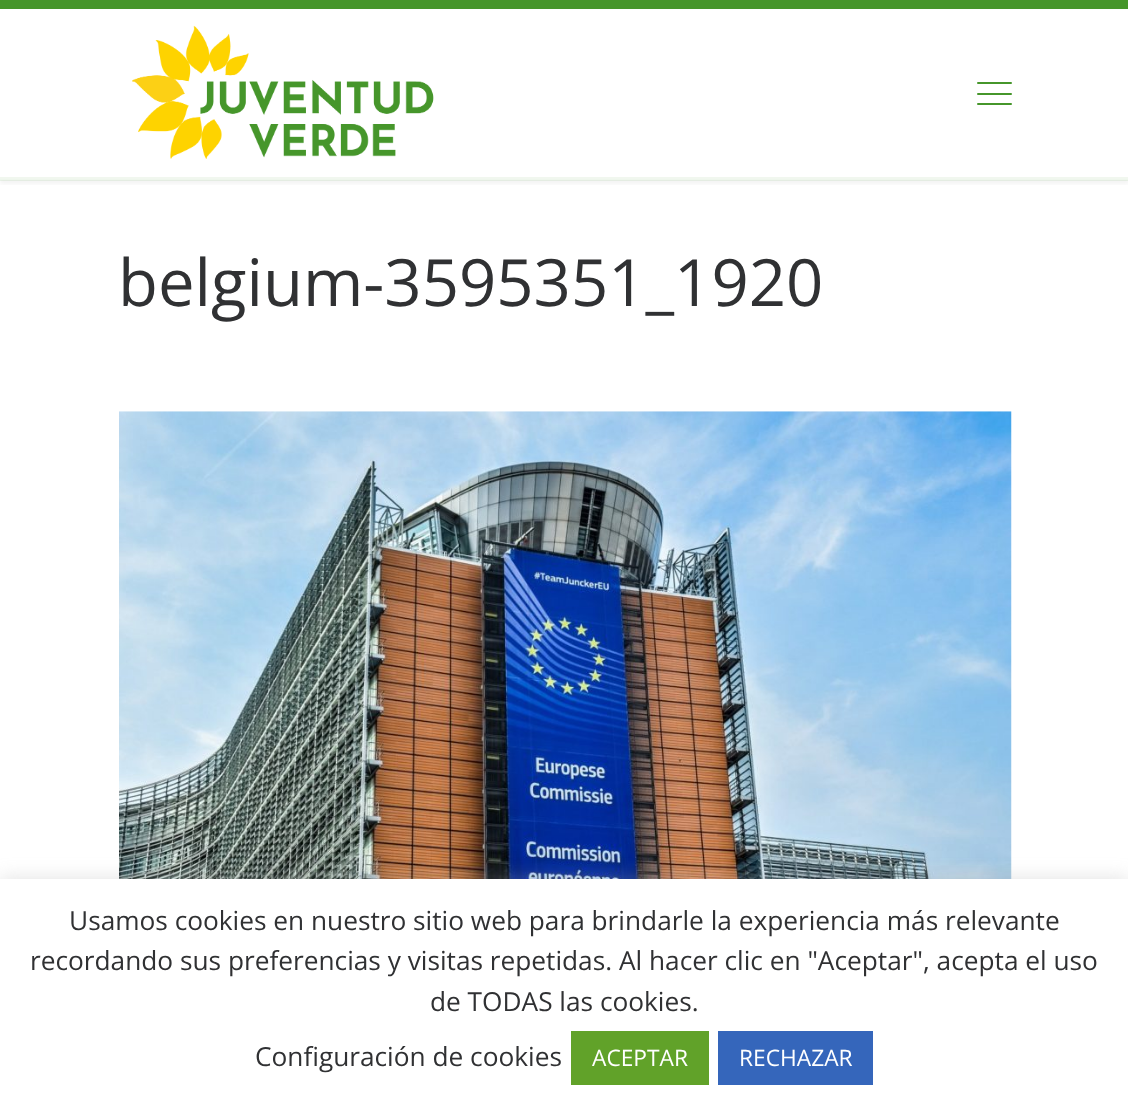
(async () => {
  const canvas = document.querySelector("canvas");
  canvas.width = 1128;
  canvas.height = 1105;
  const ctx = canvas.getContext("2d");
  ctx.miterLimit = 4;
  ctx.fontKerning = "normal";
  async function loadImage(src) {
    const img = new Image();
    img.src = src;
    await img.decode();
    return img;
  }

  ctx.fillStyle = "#ffffff";
  ctx.fillRect(0, 0, 1128, 1105);
  ctx.save();
  ctx.beginPath();
  ctx.rect(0, 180, 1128, 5);
  ctx.clip();
  ctx.fillStyle = "rgba(102, 102, 102, 0.08)";
  ctx.filter = "blur(2px)";
  ctx.beginPath();
  ctx.rect(0, 4, 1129, 180);
  ctx.fill();
  ctx.filter = "none";
  ctx.restore();
  ctx.fillStyle = "#46962b";
  ctx.fillRect(0, 0, 1128, 9);
  ctx.fillStyle = "rgba(70, 150, 43, 0.09)";
  ctx.fillRect(0, 179, 1128, 2);
  ctx.drawImage(await loadImage("img/1.png"), 132, 25, 302, 134);
  ctx.fillStyle = "#46962b";
  ctx.beginPath();
  ctx.roundRect(977, 82, 35, 2, 1);
  ctx.fill();
  ctx.beginPath();
  ctx.roundRect(977, 93, 35, 2, 1);
  ctx.fill();
  ctx.beginPath();
  ctx.roundRect(977, 103, 35, 2, 1);
  ctx.fill();
  ctx.fillStyle = "#f1f7ef";
  ctx.fillRect(0, 177, 1128, 2);
  ctx.drawImage(await loadImage("img/2.png"), 119, 411, 893, 468);
  ctx.fillStyle = "rgba(172, 171, 171, 0.3)";
  ctx.filter = "blur(9px)";
  ctx.beginPath();
  ctx.rect(0, 877, 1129, 227);
  ctx.fill();
  ctx.filter = "none";
  for (const [x, y, w, h, color] of [
    [0, 879, 1128, 226, "#ffffff"],
    [571, 1031, 138, 54, "#61a229"],
    [718, 1031, 155, 54, "#3566bb"],
  ]) {
    ctx.fillStyle = color;
    ctx.fillRect(x, y, w, h);
  }
  ctx.font = "65.25px Open Sans";
  ctx.fillStyle = "#303133";
  ctx.fillText("belgium-3595351_1920", 118, 306);
  ctx.font = "26.25px Open Sans";
  for (const [text, x, y] of [
    ["Usamos cookies en nuestro sitio web para brindarle la experiencia más relevante", 69, 930],
    ["recordando sus preferencias y visitas repetidas. Al hacer clic en \"Aceptar\", acepta el uso", 30, 970],
    ["de TODAS las cookies.", 430, 1011],
    ["Configuración de cookies", 255, 1066],
  ]) {
    ctx.fillText(text, x, y);
  }
  ctx.font = "22.75px Open Sans";
  ctx.fillStyle = "#ffffff";
  ctx.fillText("ACEPTAR", 592, 1066);
  ctx.fillText("RECHAZAR", 739, 1066);
})();
